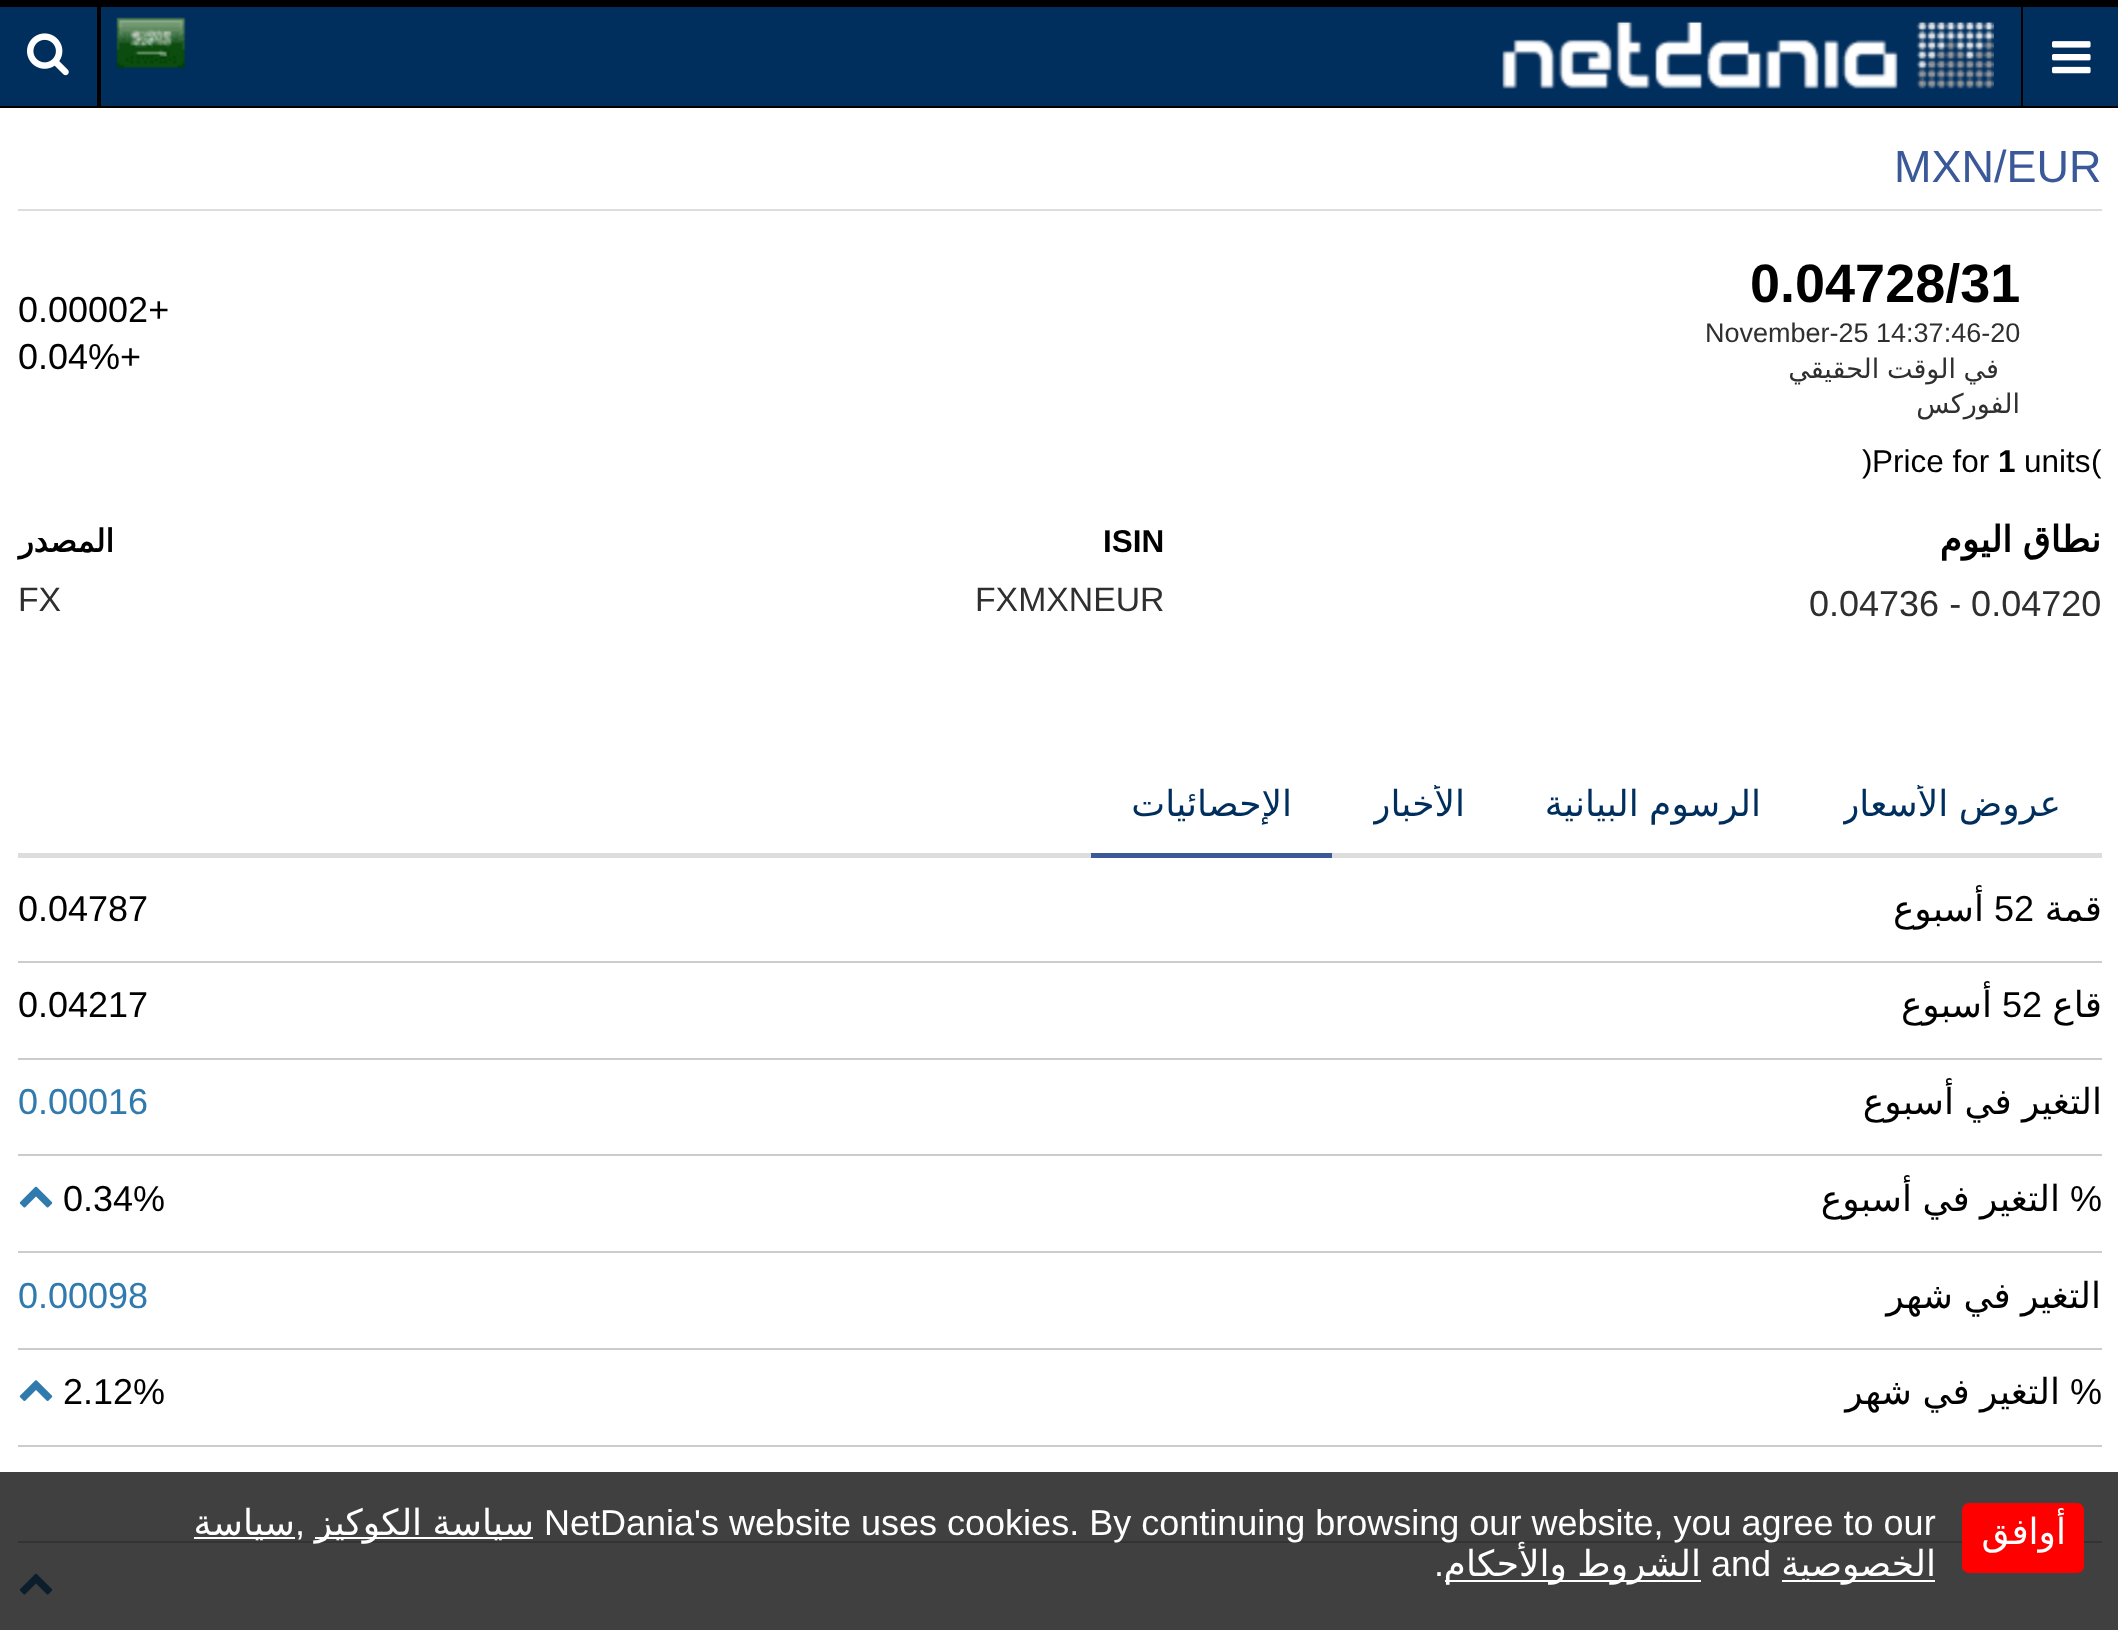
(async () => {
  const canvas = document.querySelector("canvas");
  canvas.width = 2118;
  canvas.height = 1630;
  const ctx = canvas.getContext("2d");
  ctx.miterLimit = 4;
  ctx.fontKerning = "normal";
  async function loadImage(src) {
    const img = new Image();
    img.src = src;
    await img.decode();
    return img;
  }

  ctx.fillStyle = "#ffffff";
  ctx.fillRect(0, 0, 2118, 1630);
  for (const [x, y, w, h, color] of [
    [0, 7, 2118, 99, "#002e5d"],
    [0, 0, 2118, 7, "#000000"],
    [0, 106, 2118, 2, "#000000"],
  ]) {
    ctx.fillStyle = color;
    ctx.fillRect(x, y, w, h);
  }
  ctx.drawImage(await loadImage("img/1.png"), 27, 33, 42, 43);
  ctx.fillRect(97, 7, 4, 99);
  ctx.drawImage(await loadImage("img/2.png"), 116, 17, 70, 52);
  ctx.drawImage(await loadImage("img/3.png"), 1502, 21, 492, 68);
  ctx.fillRect(2021, 7, 2, 99);
  ctx.drawImage(await loadImage("img/4.png"), 2052, 41, 39, 33);
  for (const [x, y, w, h, color] of [
    [18, 209, 2084, 2, "#dddddd"],
    [18, 853, 2084, 5, "#dddddd"],
    [1091, 853, 241, 5, "#3b5998"],
    [18, 961, 2084, 2, "#cccccc"],
    [18, 1058, 2084, 2, "#cccccc"],
    [18, 1154, 2084, 2, "#cccccc"],
    [18, 1251, 2084, 2, "#cccccc"],
  ]) {
    ctx.fillStyle = color;
    ctx.fillRect(x, y, w, h);
  }
  ctx.drawImage(await loadImage("img/5.png"), 19, 1186, 34, 22);
  ctx.fillRect(18, 1348, 2084, 2);
  ctx.fillRect(18, 1445, 2084, 2);
  ctx.drawImage(await loadImage("img/6.png"), 19, 1380, 34, 21);
  ctx.fillRect(18, 1541, 2084, 2);
  ctx.drawImage(await loadImage("img/5.png"), 19, 1573, 34, 22);
  for (const [x, y, w, h, color] of [
    [0, 1472, 2118, 158, "rgba(0, 0, 0, 0.75)"],
    [194, 1537, 101, 2, "#ffffff"],
    [315, 1537, 218, 2, "#ffffff"],
  ]) {
    ctx.fillStyle = color;
    ctx.fillRect(x, y, w, h);
  }
  ctx.fillStyle = "#ff0000";
  ctx.beginPath();
  ctx.roundRect(1962, 1503, 122, 70, 7);
  ctx.fill();
  ctx.fillStyle = "#ffffff";
  ctx.fillRect(1445, 1580, 256, 2);
  ctx.fillRect(1782, 1580, 153, 2);
  ctx.font = "45px Liberation Sans";
  ctx.fillStyle = "#3b5998";
  ctx.fillText("MXN/EUR", 1894, 182);
  ctx.font = "36px Liberation Sans";
  ctx.fillStyle = "#000000";
  ctx.fillText("0.00002+", 18, 322);
  ctx.fillText("0.04%+", 18, 369);
  ctx.font = "bold 54px Liberation Sans";
  ctx.fillText("0.04728/31", 1750, 302);
  ctx.font = "27px Liberation Sans";
  ctx.fillStyle = "#2f2f2f";
  ctx.fillText("November-25 14:37:46-20", 1705, 342);
  ctx.wordSpacing = "-1px";
  ctx.direction = "rtl";
  ctx.font = "27px DejaVu Sans";
  ctx.fillText("في الوقت الحقيقي", 1999, 378);
  ctx.wordSpacing = "0px";
  ctx.fillText("الفوركس", 2020, 413);
  ctx.direction = "ltr";
  ctx.font = "31.5px Liberation Sans";
  ctx.fillStyle = "#000000";
  ctx.fillText(")", 1862, 472);
  ctx.fillText("Price for", 1872, 472);
  ctx.font = "bold 31.5px Liberation Sans";
  ctx.fillText("1", 1998, 472);
  ctx.font = "31.5px Liberation Sans";
  ctx.fillText("units", 2024, 472);
  ctx.fillText("(", 2091, 472);
  ctx.direction = "rtl";
  ctx.font = "bold 31.5px DejaVu Sans";
  ctx.fillText("المصدر", 114, 552);
  ctx.direction = "ltr";
  ctx.font = "33.75px Liberation Sans";
  ctx.fillStyle = "#2f2f2f";
  ctx.fillText("FX", 18, 611);
  ctx.font = "bold 31.5px Liberation Sans";
  ctx.fillStyle = "#000000";
  ctx.fillText("ISIN", 1103, 552);
  ctx.font = "33.75px Liberation Sans";
  ctx.fillStyle = "#2f2f2f";
  ctx.fillText("FXMXNEUR", 975, 611);
  ctx.wordSpacing = "-1px";
  ctx.direction = "rtl";
  ctx.font = "bold 36px DejaVu Sans";
  ctx.fillStyle = "#000000";
  ctx.fillText("نطاق اليوم", 2101, 552);
  ctx.wordSpacing = "0px";
  ctx.direction = "ltr";
  ctx.font = "36px Liberation Sans";
  ctx.fillStyle = "#2f2f2f";
  ctx.fillText("0.04736 - 0.04720", 1809, 616);
  ctx.direction = "rtl";
  ctx.font = "36px DejaVu Sans";
  ctx.fillStyle = "#002e5d";
  ctx.fillText("الإحصائيات", 1292, 816);
  ctx.save();
  ctx.beginPath();
  ctx.rect(1373, 785, 92, 41);
  ctx.clip();
  ctx.fillText("الأخبار", 1465, 816);
  ctx.restore();
  ctx.wordSpacing = "-1px";
  ctx.fillText("الرسوم البيانية", 1761, 816);
  ctx.save();
  ctx.beginPath();
  ctx.rect(1843, 785, 218, 41);
  ctx.clip();
  ctx.fillText("عروض الأسعار", 2061, 816);
  ctx.restore();
  ctx.wordSpacing = "0px";
  ctx.direction = "ltr";
  ctx.font = "36px Liberation Sans";
  ctx.fillStyle = "#000000";
  ctx.fillText("0.04787", 18, 921);
  ctx.direction = "rtl";
  ctx.font = "36px DejaVu Sans";
  ctx.fillText("أسبوع", 1984, 921);
  ctx.direction = "ltr";
  ctx.font = "36px Liberation Sans";
  ctx.fillText("52", 1994, 921);
  ctx.direction = "rtl";
  ctx.font = "36px DejaVu Sans";
  ctx.fillText("قمة", 2102, 921);
  ctx.direction = "ltr";
  ctx.font = "36px Liberation Sans";
  ctx.fillText("0.04217", 18, 1017);
  ctx.direction = "rtl";
  ctx.font = "36px DejaVu Sans";
  ctx.fillText("أسبوع", 1992, 1017);
  ctx.direction = "ltr";
  ctx.font = "36px Liberation Sans";
  ctx.fillText("52", 2002, 1017);
  ctx.direction = "rtl";
  ctx.font = "36px DejaVu Sans";
  ctx.fillText("قاع", 2102, 1017);
  ctx.direction = "ltr";
  ctx.font = "36px Liberation Sans";
  ctx.fillStyle = "#307aad";
  ctx.fillText("0.00016", 18, 1114);
  ctx.wordSpacing = "-1px";
  ctx.direction = "rtl";
  ctx.font = "36px DejaVu Sans";
  ctx.fillStyle = "#000000";
  ctx.fillText("التغير في أسبوع", 2102, 1114);
  ctx.wordSpacing = "0px";
  ctx.direction = "ltr";
  ctx.font = "36px Liberation Sans";
  ctx.fillText("0.34%", 63, 1211);
  ctx.wordSpacing = "-1px";
  ctx.direction = "rtl";
  ctx.font = "36px DejaVu Sans";
  ctx.fillText("التغير في أسبوع", 2060, 1211);
  ctx.wordSpacing = "0px";
  ctx.font = "36px Liberation Sans";
  ctx.fillText("%", 2102, 1211);
  ctx.direction = "ltr";
  ctx.fillStyle = "#307aad";
  ctx.fillText("0.00098", 18, 1308);
  ctx.wordSpacing = "-1px";
  ctx.direction = "rtl";
  ctx.font = "36px DejaVu Sans";
  ctx.fillStyle = "#000000";
  ctx.fillText("التغير في شهر", 2101, 1308);
  ctx.wordSpacing = "0px";
  ctx.direction = "ltr";
  ctx.font = "36px Liberation Sans";
  ctx.fillText("2.12%", 63, 1404);
  ctx.wordSpacing = "-1px";
  ctx.direction = "rtl";
  ctx.font = "36px DejaVu Sans";
  ctx.fillText("التغير في شهر", 2060, 1404);
  ctx.wordSpacing = "0px";
  ctx.font = "36px Liberation Sans";
  ctx.fillText("%", 2102, 1404);
  ctx.font = "36px DejaVu Sans";
  ctx.fillStyle = "#ffffff";
  ctx.fillText("سياسة", 295, 1535);
  ctx.direction = "ltr";
  ctx.font = "36px Liberation Sans";
  ctx.fillText(",", 295, 1535);
  ctx.wordSpacing = "-1px";
  ctx.direction = "rtl";
  ctx.font = "36px DejaVu Sans";
  ctx.fillText("سياسة الكوكيز", 534, 1535);
  ctx.wordSpacing = "0px";
  ctx.direction = "ltr";
  ctx.font = "36px Liberation Sans";
  ctx.fillText("NetDania's website uses cookies. By continuing browsing our website, you agree to our", 544, 1535);
  ctx.direction = "rtl";
  ctx.font = "36px DejaVu Sans";
  ctx.fillText("أوافق", 2066, 1544);
  ctx.direction = "ltr";
  ctx.font = "36px Liberation Sans";
  ctx.fillText(".", 1434, 1576);
  ctx.wordSpacing = "-1px";
  ctx.direction = "rtl";
  ctx.font = "36px DejaVu Sans";
  ctx.fillText("الشروط والأحكام", 1701, 1576);
  ctx.wordSpacing = "0px";
  ctx.direction = "ltr";
  ctx.font = "36px Liberation Sans";
  ctx.fillText("and", 1711, 1576);
  ctx.direction = "rtl";
  ctx.font = "36px DejaVu Sans";
  ctx.fillText("الخصوصية", 1936, 1576);
})();
